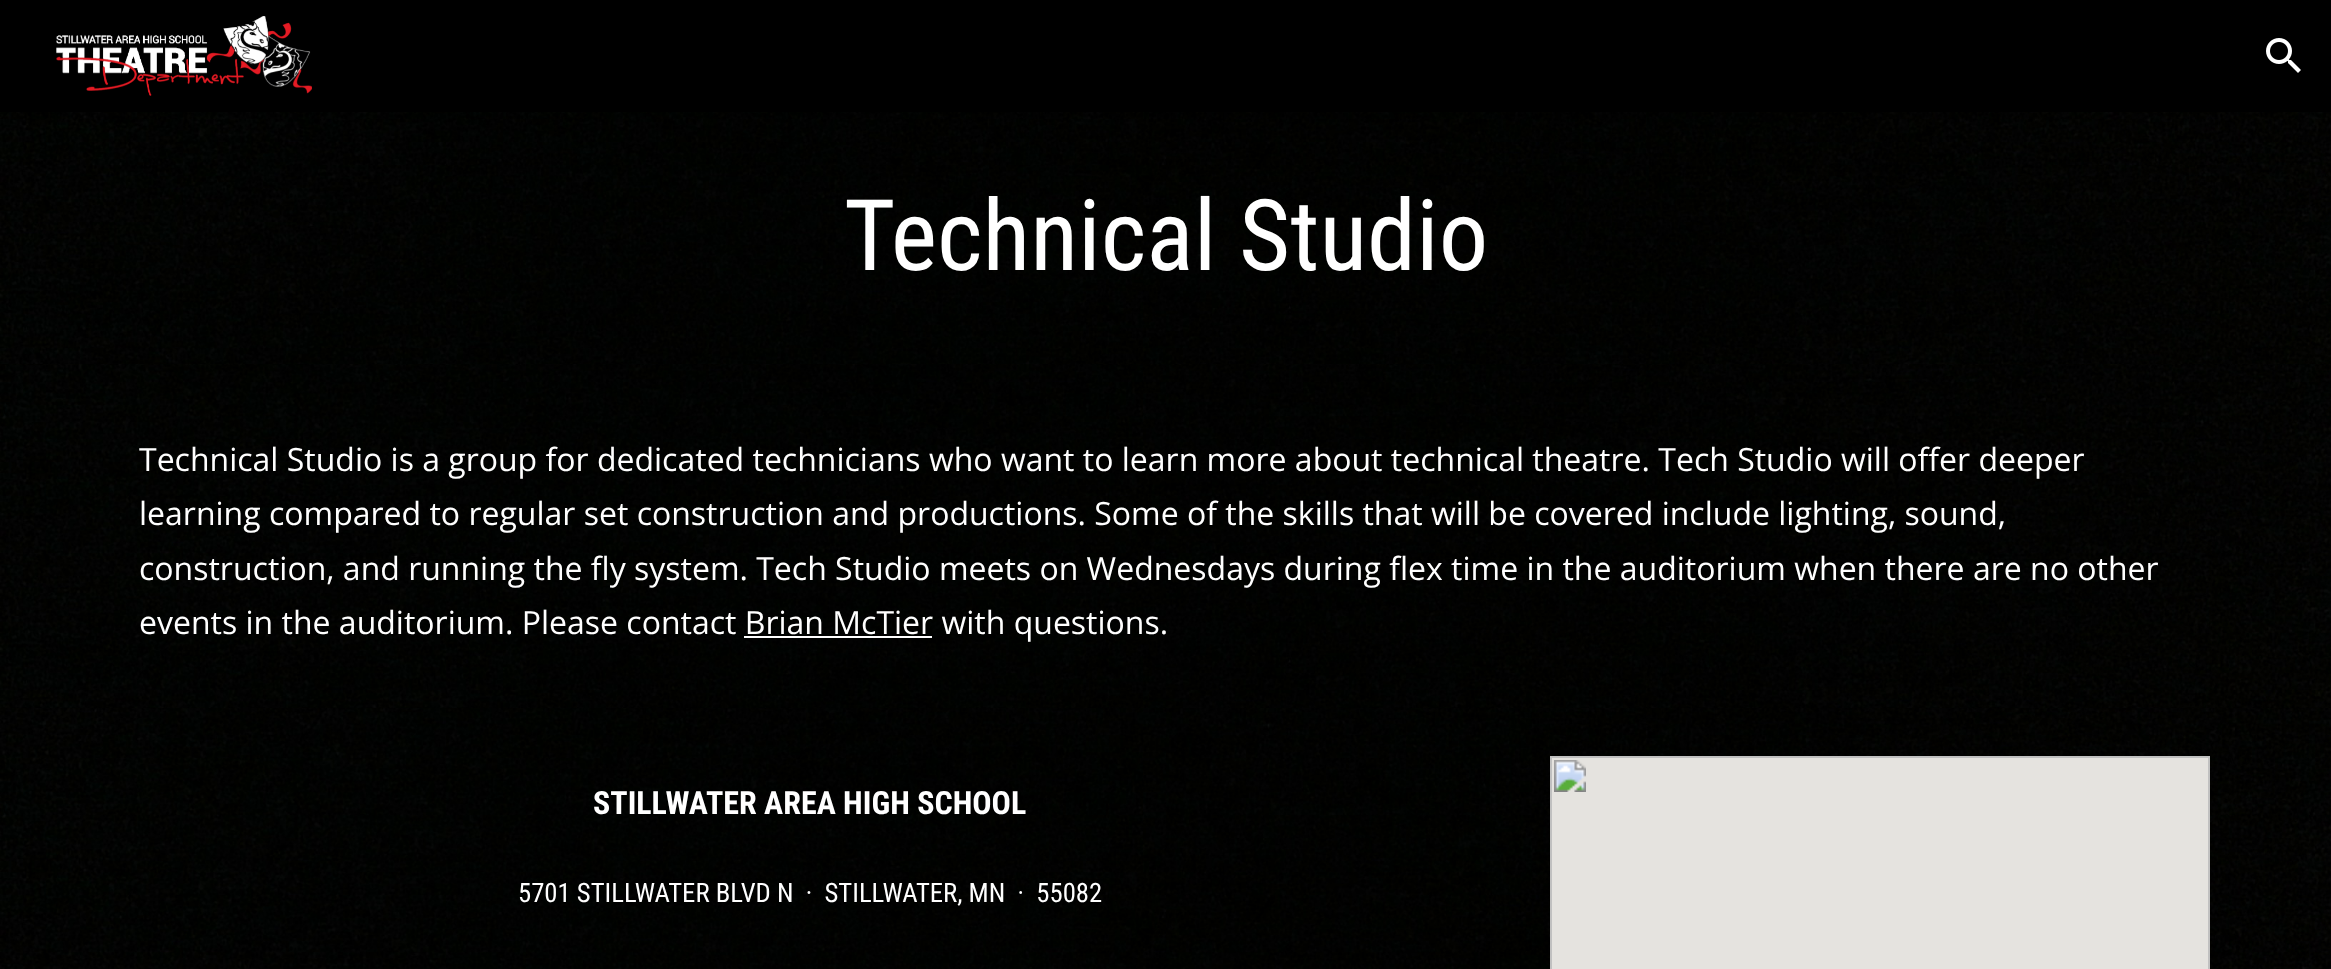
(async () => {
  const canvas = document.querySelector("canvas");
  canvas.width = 2331;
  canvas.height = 969;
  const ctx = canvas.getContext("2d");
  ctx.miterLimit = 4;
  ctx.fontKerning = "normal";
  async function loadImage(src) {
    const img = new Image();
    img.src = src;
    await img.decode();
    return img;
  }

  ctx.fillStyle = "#ffffff";
  ctx.fillRect(0, 0, 2331, 969);
  ctx.fillStyle = "#000000";
  ctx.fillRect(0, 0, 2331, 112);
  ctx.drawImage(await loadImage("img/1.png"), 56, 16, 256, 80);
  ctx.drawImage(await loadImage("img/2.png"), 2266, 38, 35, 35);
  ctx.drawImage(await loadImage("img/3.png"), 0, 112, 2331, 252);
  ctx.drawImage(await loadImage("img/4.png"), 0, 364, 2331, 344);
  ctx.fillStyle = "#ffffff";
  ctx.fillRect(744, 636, 188, 2);
  ctx.drawImage(await loadImage("img/5.png"), 0, 708, 2331, 261);
  ctx.drawImage(await loadImage("img/6.png"), 1550, 756, 660, 213);
  ctx.font = "98.75px Roboto Condensed";
  ctx.fillText("Technical Studio", 844, 270);
  ctx.font = "32px Open Sans";
  for (const [text, x, y] of [
    ["Technical Studio is a group for dedicated technicians who want to learn more about technical theatre. Tech Studio will offer deeper", 139, 471],
    ["learning compared to regular set construction and productions. Some of the skills that will be covered include lighting, sound,", 139, 525],
    ["construction, and running the fly system. Tech Studio meets on Wednesdays during flex time in the auditorium when there are no other", 139, 580],
    ["events in the auditorium. Please contact Brian McTier with questions.", 139, 634],
  ]) {
    ctx.fillText(text, x, y);
  }
  ctx.font = "bold 32px Roboto Condensed";
  ctx.fillText("STILLWATER AREA HIGH SCHOOL", 593, 814);
  ctx.font = "26.7px Roboto Condensed";
  ctx.fillText("5701 STILLWATER BLVD N  ·  STILLWATER, MN  ·  55082", 518, 902);
})();
